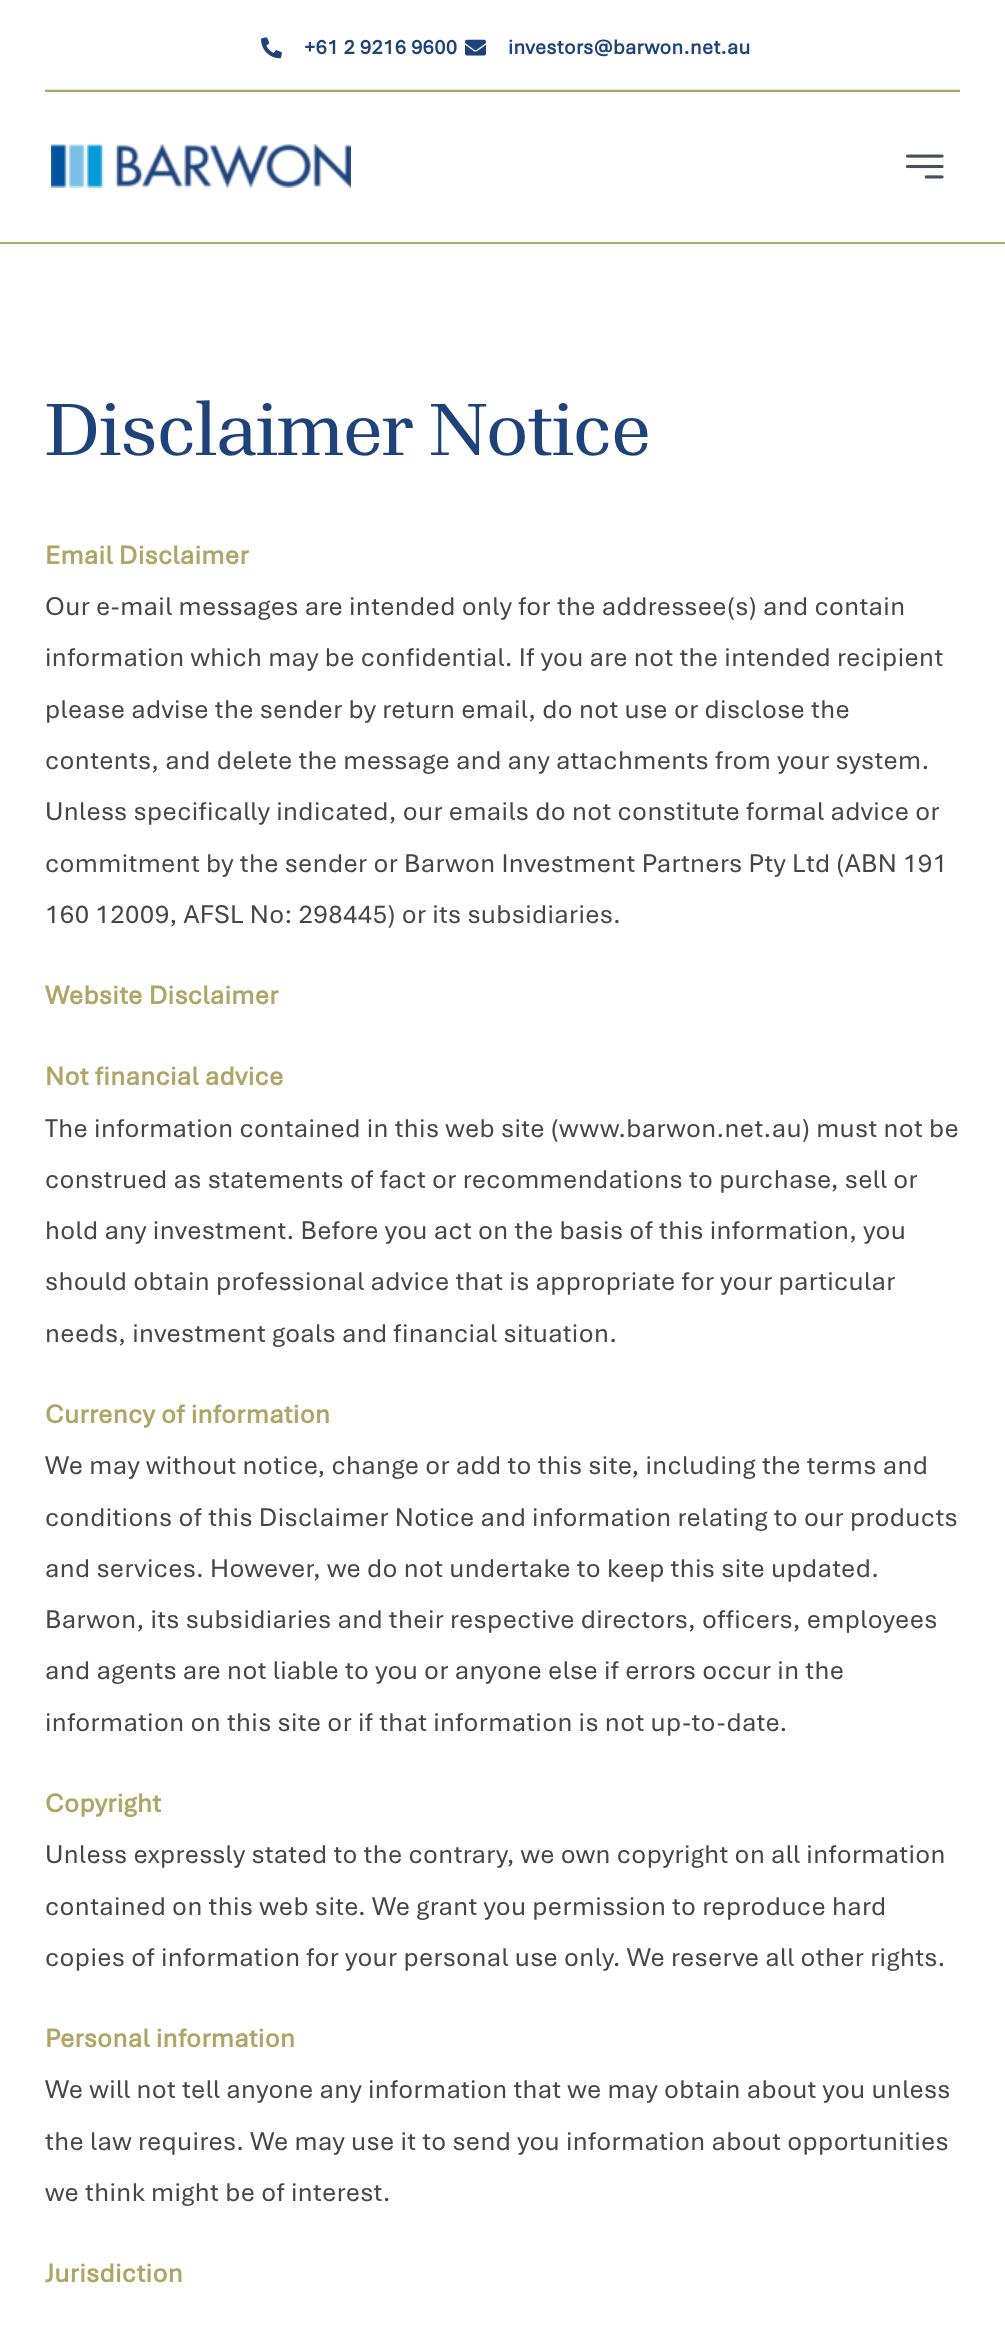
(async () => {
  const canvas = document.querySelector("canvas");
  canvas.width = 1005;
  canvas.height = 2328;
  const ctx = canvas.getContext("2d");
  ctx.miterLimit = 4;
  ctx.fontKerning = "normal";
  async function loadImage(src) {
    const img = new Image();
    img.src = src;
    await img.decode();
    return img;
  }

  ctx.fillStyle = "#ffffff";
  ctx.fillRect(0, 0, 1005, 2328);
  ctx.fillStyle = "#e4e4e4";
  ctx.fillRect(45, 89, 915, 1);
  ctx.drawImage(await loadImage("img/1.png"), 261, 37, 21, 22);
  ctx.drawImage(await loadImage("img/2.png"), 465, 39, 21, 17);
  ctx.fillStyle = "#afa566";
  ctx.fillRect(45, 90, 915, 2);
  ctx.fillRect(0, 242, 1005, 2);
  ctx.drawImage(await loadImage("img/3.png"), 51, 144, 300, 44);
  ctx.drawImage(await loadImage("img/4.png"), 906, 154, 38, 25);
  ctx.letterSpacing = "0.4px";
  ctx.font = "bold 21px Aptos";
  ctx.fillStyle = "#1e437b";
  ctx.fillText("+61 2 9216 9600", 304, 54);
  ctx.fillText("investors@barwon.net.au", 508, 54);
  ctx.letterSpacing = "-1.2px";
  ctx.font = "77.5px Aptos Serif";
  ctx.fillText("Disclaimer Notice", 45, 455);
  ctx.letterSpacing = "0.4px";
  ctx.font = "bold 27px Aptos";
  ctx.fillStyle = "#afa566";
  ctx.fillText("Email Disclaimer", 45, 564);
  ctx.font = "27px Aptos";
  ctx.fillStyle = "#464646";
  for (const [text, x, y] of [
    ["Our e-mail messages are intended only for the addressee(s) and contain", 45, 615],
    ["information which may be confidential. If you are not the intended recipient", 45, 666],
    ["please advise the sender by return email, do not use or disclose the", 45, 718],
    ["contents, and delete the message and any attachments from your system.", 45, 769],
    ["Unless specifically indicated, our emails do not constitute formal advice or", 45, 820],
    ["commitment by the sender or Barwon Investment Partners Pty Ltd (ABN 191", 45, 872],
    ["160 12009, AFSL No: 298445) or its subsidiaries.", 45, 923],
  ]) {
    ctx.fillText(text, x, y);
  }
  ctx.font = "bold 27px Aptos";
  ctx.fillStyle = "#afa566";
  ctx.fillText("Website Disclaimer", 45, 1004);
  ctx.fillText("Not financial advice", 45, 1085);
  ctx.font = "27px Aptos";
  ctx.fillStyle = "#464646";
  for (const [text, x, y] of [
    ["The information contained in this web site (www.barwon.net.au) must not be", 45, 1137],
    ["construed as statements of fact or recommendations to purchase, sell or", 45, 1188],
    ["hold any investment. Before you act on the basis of this information, you", 45, 1239],
    ["should obtain professional advice that is appropriate for your particular", 45, 1290],
    ["needs, investment goals and financial situation.", 45, 1342],
  ]) {
    ctx.fillText(text, x, y);
  }
  ctx.font = "bold 27px Aptos";
  ctx.fillStyle = "#afa566";
  ctx.fillText("Currency of information", 45, 1423);
  ctx.font = "27px Aptos";
  ctx.fillStyle = "#464646";
  for (const [text, x, y] of [
    ["We may without notice, change or add to this site, including the terms and", 45, 1474],
    ["conditions of this Disclaimer Notice and information relating to our products", 45, 1526],
    ["and services. However, we do not undertake to keep this site updated.", 45, 1577],
    ["Barwon, its subsidiaries and their respective directors, officers, employees", 45, 1628],
    ["and agents are not liable to you or anyone else if errors occur in the", 45, 1679],
    ["information on this site or if that information is not up-to-date.", 45, 1731],
  ]) {
    ctx.fillText(text, x, y);
  }
  ctx.font = "bold 27px Aptos";
  ctx.fillStyle = "#afa566";
  ctx.fillText("Copyright", 45, 1812);
  ctx.font = "27px Aptos";
  ctx.fillStyle = "#464646";
  for (const [text, x, y] of [
    ["Unless expressly stated to the contrary, we own copyright on all information", 45, 1863],
    ["contained on this web site. We grant you permission to reproduce hard", 45, 1915],
    ["copies of information for your personal use only. We reserve all other rights.", 45, 1966],
  ]) {
    ctx.fillText(text, x, y);
  }
  ctx.font = "bold 27px Aptos";
  ctx.fillStyle = "#afa566";
  ctx.fillText("Personal information", 45, 2047);
  ctx.font = "27px Aptos";
  ctx.fillStyle = "#464646";
  for (const [text, x, y] of [
    ["We will not tell anyone any information that we may obtain about you unless", 45, 2098],
    ["the law requires. We may use it to send you information about opportunities", 45, 2150],
    ["we think might be of interest.", 45, 2201],
  ]) {
    ctx.fillText(text, x, y);
  }
  ctx.font = "bold 27px Aptos";
  ctx.fillStyle = "#afa566";
  ctx.fillText("Jurisdiction", 45, 2282);
})();
